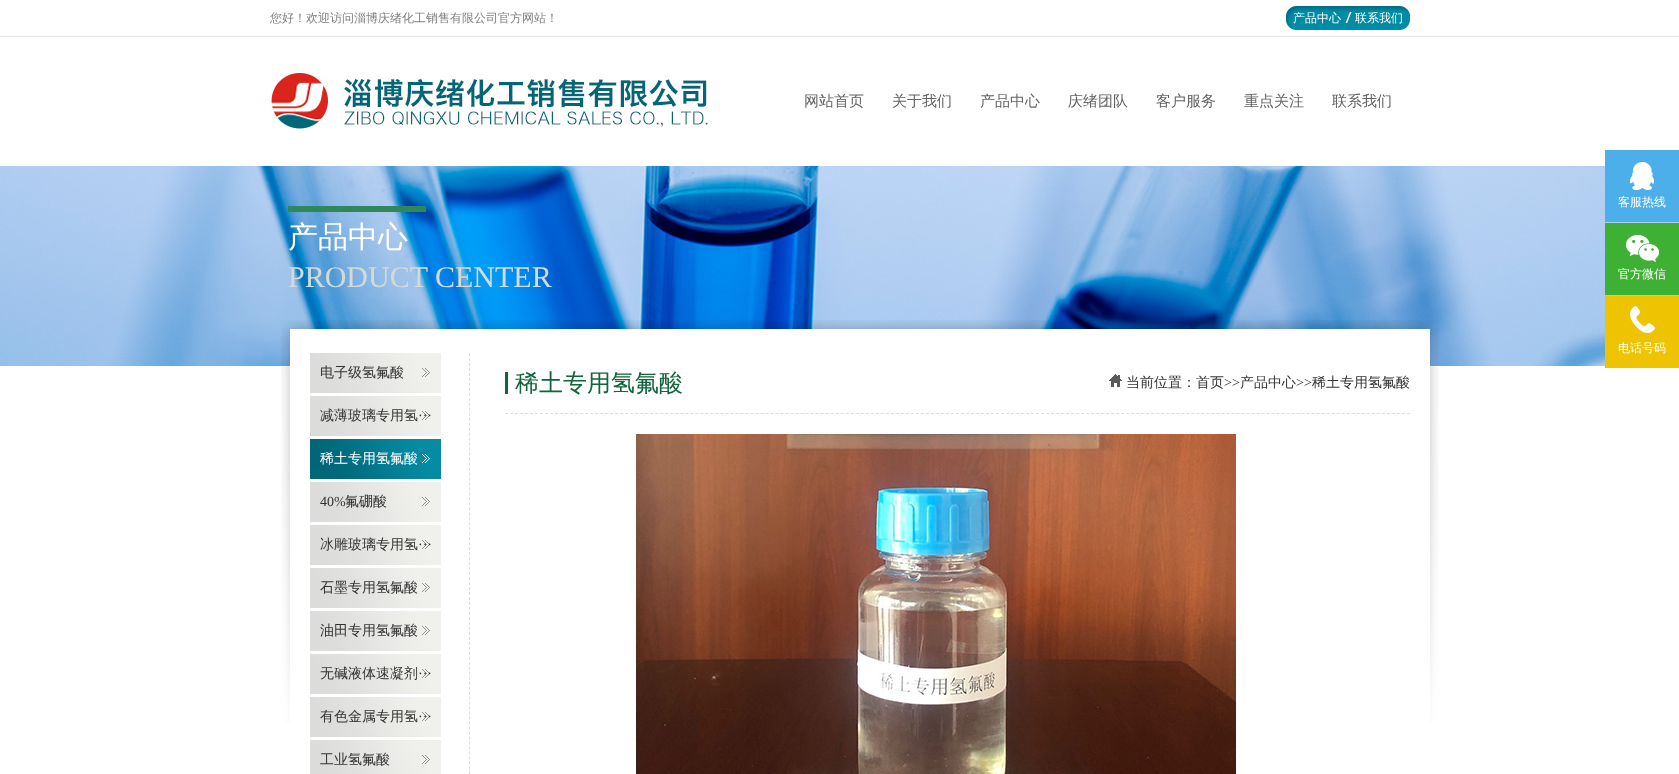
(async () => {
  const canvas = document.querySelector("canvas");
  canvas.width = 1679;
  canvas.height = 774;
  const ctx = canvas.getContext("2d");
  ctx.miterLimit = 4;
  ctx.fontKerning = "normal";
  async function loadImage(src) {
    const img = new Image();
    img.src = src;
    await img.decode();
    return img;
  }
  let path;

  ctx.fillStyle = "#ffffff";
  ctx.fillRect(0, 0, 1679, 774);
  ctx.fillStyle = "#e5e5e5";
  ctx.fillRect(0, 36, 1679, 1);
  ctx.drawImage(await loadImage("img/1.png"), 1286, 6, 124, 24);
  ctx.drawImage(await loadImage("img/2.png"), 271, 73, 437, 56);
  ctx.drawImage(await loadImage("img/3.png"), 0, 166, 1679, 200);
  ctx.fillStyle = "#30875c";
  ctx.fillRect(288, 206, 138, 6);
  ctx.fillStyle = "#4dafea";
  ctx.fillRect(1605, 150, 74, 72);
  ctx.drawImage(await loadImage("img/4.png"), 1630, 162, 24, 28);
  ctx.fillStyle = "#3eb135";
  ctx.fillRect(1605, 223, 74, 72);
  ctx.drawImage(await loadImage("img/5.png"), 1626, 235, 33, 27);
  ctx.fillStyle = "#eec301";
  ctx.fillRect(1605, 296, 74, 72);
  ctx.drawImage(await loadImage("img/6.png"), 1630, 306, 25, 27);
  ctx.drawImage(await loadImage("img/7.png"), 281, 320, 1158, 403);
  ctx.drawImage(await loadImage("img/8.png"), 310, 353, 131, 40);
  ctx.drawImage(await loadImage("img/8.png"), 310, 396, 131, 40);
  ctx.drawImage(await loadImage("img/9.png"), 310, 439, 131, 40);
  ctx.drawImage(await loadImage("img/8.png"), 310, 482, 131, 40);
  ctx.drawImage(await loadImage("img/8.png"), 310, 525, 131, 40);
  ctx.drawImage(await loadImage("img/8.png"), 310, 568, 131, 40);
  ctx.drawImage(await loadImage("img/8.png"), 310, 611, 131, 40);
  ctx.drawImage(await loadImage("img/8.png"), 310, 654, 131, 40);
  ctx.drawImage(await loadImage("img/8.png"), 310, 697, 131, 40);
  ctx.drawImage(await loadImage("img/10.png"), 310, 740, 131, 34);
  path = new Path2D("M469.5 353V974");
  ctx.strokeStyle = "#dddddd";
  ctx.setLineDash([3, 1.98]);
  ctx.stroke(path);
  path = new Path2D("M505 413.5H1410");
  ctx.setLineDash([3, 2.01]);
  ctx.stroke(path);
  ctx.fillStyle = "#11643c";
  ctx.fillRect(505, 372, 3, 22);
  ctx.drawImage(await loadImage("img/11.png"), 1109, 374, 13, 13);
  ctx.drawImage(await loadImage("img/12.png"), 636, 434, 600, 340);
  ctx.font = "500 12px WenQuanYi Zen Hei";
  ctx.fillStyle = "#7f7f7f";
  ctx.fillText("您好！欢迎访问淄博庆绪化工销售有限公司官方网站！", 270, 22);
  ctx.fillStyle = "#ffffff";
  ctx.fillText("产品中心", 1293, 22);
  ctx.fillText("联系我们", 1355, 22);
  ctx.font = "500 15px WenQuanYi Zen Hei";
  ctx.fillStyle = "#636363";
  for (const [text, x, y] of [
    ["网站首页", 804, 106],
    ["关于我们", 892, 106],
    ["产品中心", 980, 106],
    ["庆绪团队", 1068, 106],
    ["客户服务", 1156, 106],
    ["重点关注", 1244, 106],
    ["联系我们", 1332, 106],
  ]) {
    ctx.fillText(text, x, y);
  }
  ctx.font = "500 30px WenQuanYi Zen Hei";
  ctx.fillStyle = "#ffffff";
  ctx.fillText("产品中心", 288, 247);
  ctx.font = "30px Liberation Serif";
  ctx.fillStyle = "#d6dad4";
  ctx.fillText("PRODUCT CENTER", 288, 287);
  ctx.font = "500 12px WenQuanYi Zen Hei";
  ctx.fillStyle = "#ffffff";
  for (const [text, x, y] of [
    ["客服热线", 1618, 206],
    ["官方微信", 1618, 278],
    ["电话号码", 1618, 352],
  ]) {
    ctx.fillText(text, x, y);
  }
  ctx.font = "500 14px WenQuanYi Zen Hei";
  ctx.fillStyle = "#333333";
  ctx.fillText("电子级氢氟酸", 320, 377);
  ctx.fillText("减薄玻璃专用氢", 320, 420);
  ctx.font = "14px Liberation Serif";
  ctx.fillText("···", 418, 420);
  ctx.font = "500 14px WenQuanYi Zen Hei";
  ctx.fillStyle = "#ffffff";
  ctx.fillText("稀土专用氢氟酸", 320, 463);
  ctx.font = "14px Liberation Serif";
  ctx.fillStyle = "#333333";
  ctx.fillText("40%", 320, 506);
  ctx.font = "500 14px WenQuanYi Zen Hei";
  ctx.fillText("氟硼酸", 345, 506);
  ctx.fillText("冰雕玻璃专用氢", 320, 549);
  ctx.font = "14px Liberation Serif";
  ctx.fillText("···", 418, 549);
  ctx.font = "500 14px WenQuanYi Zen Hei";
  for (const [text, x, y] of [
    ["石墨专用氢氟酸", 320, 592],
    ["油田专用氢氟酸", 320, 635],
    ["无碱液体速凝剂", 320, 678],
  ]) {
    ctx.fillText(text, x, y);
  }
  ctx.font = "14px Liberation Serif";
  ctx.fillText("···", 418, 678);
  ctx.font = "500 14px WenQuanYi Zen Hei";
  ctx.fillText("有色金属专用氢", 320, 721);
  ctx.font = "14px Liberation Serif";
  ctx.fillText("···", 418, 721);
  ctx.font = "500 14px WenQuanYi Zen Hei";
  ctx.fillText("工业氢氟酸", 320, 764);
  ctx.font = "500 24px WenQuanYi Zen Hei";
  ctx.fillStyle = "#11643c";
  ctx.fillText("稀土专用氢氟酸", 515, 391);
  ctx.font = "500 14px WenQuanYi Zen Hei";
  ctx.fillStyle = "#333333";
  ctx.fillText("当前位置：首页", 1126, 387);
  ctx.font = "14px Liberation Serif";
  ctx.fillText(">>", 1224, 387);
  ctx.font = "500 14px WenQuanYi Zen Hei";
  ctx.fillText("产品中心", 1240, 387);
  ctx.font = "14px Liberation Serif";
  ctx.fillText(">>", 1296, 387);
  ctx.font = "500 14px WenQuanYi Zen Hei";
  ctx.fillText("稀土专用氢氟酸", 1312, 387);
})();
